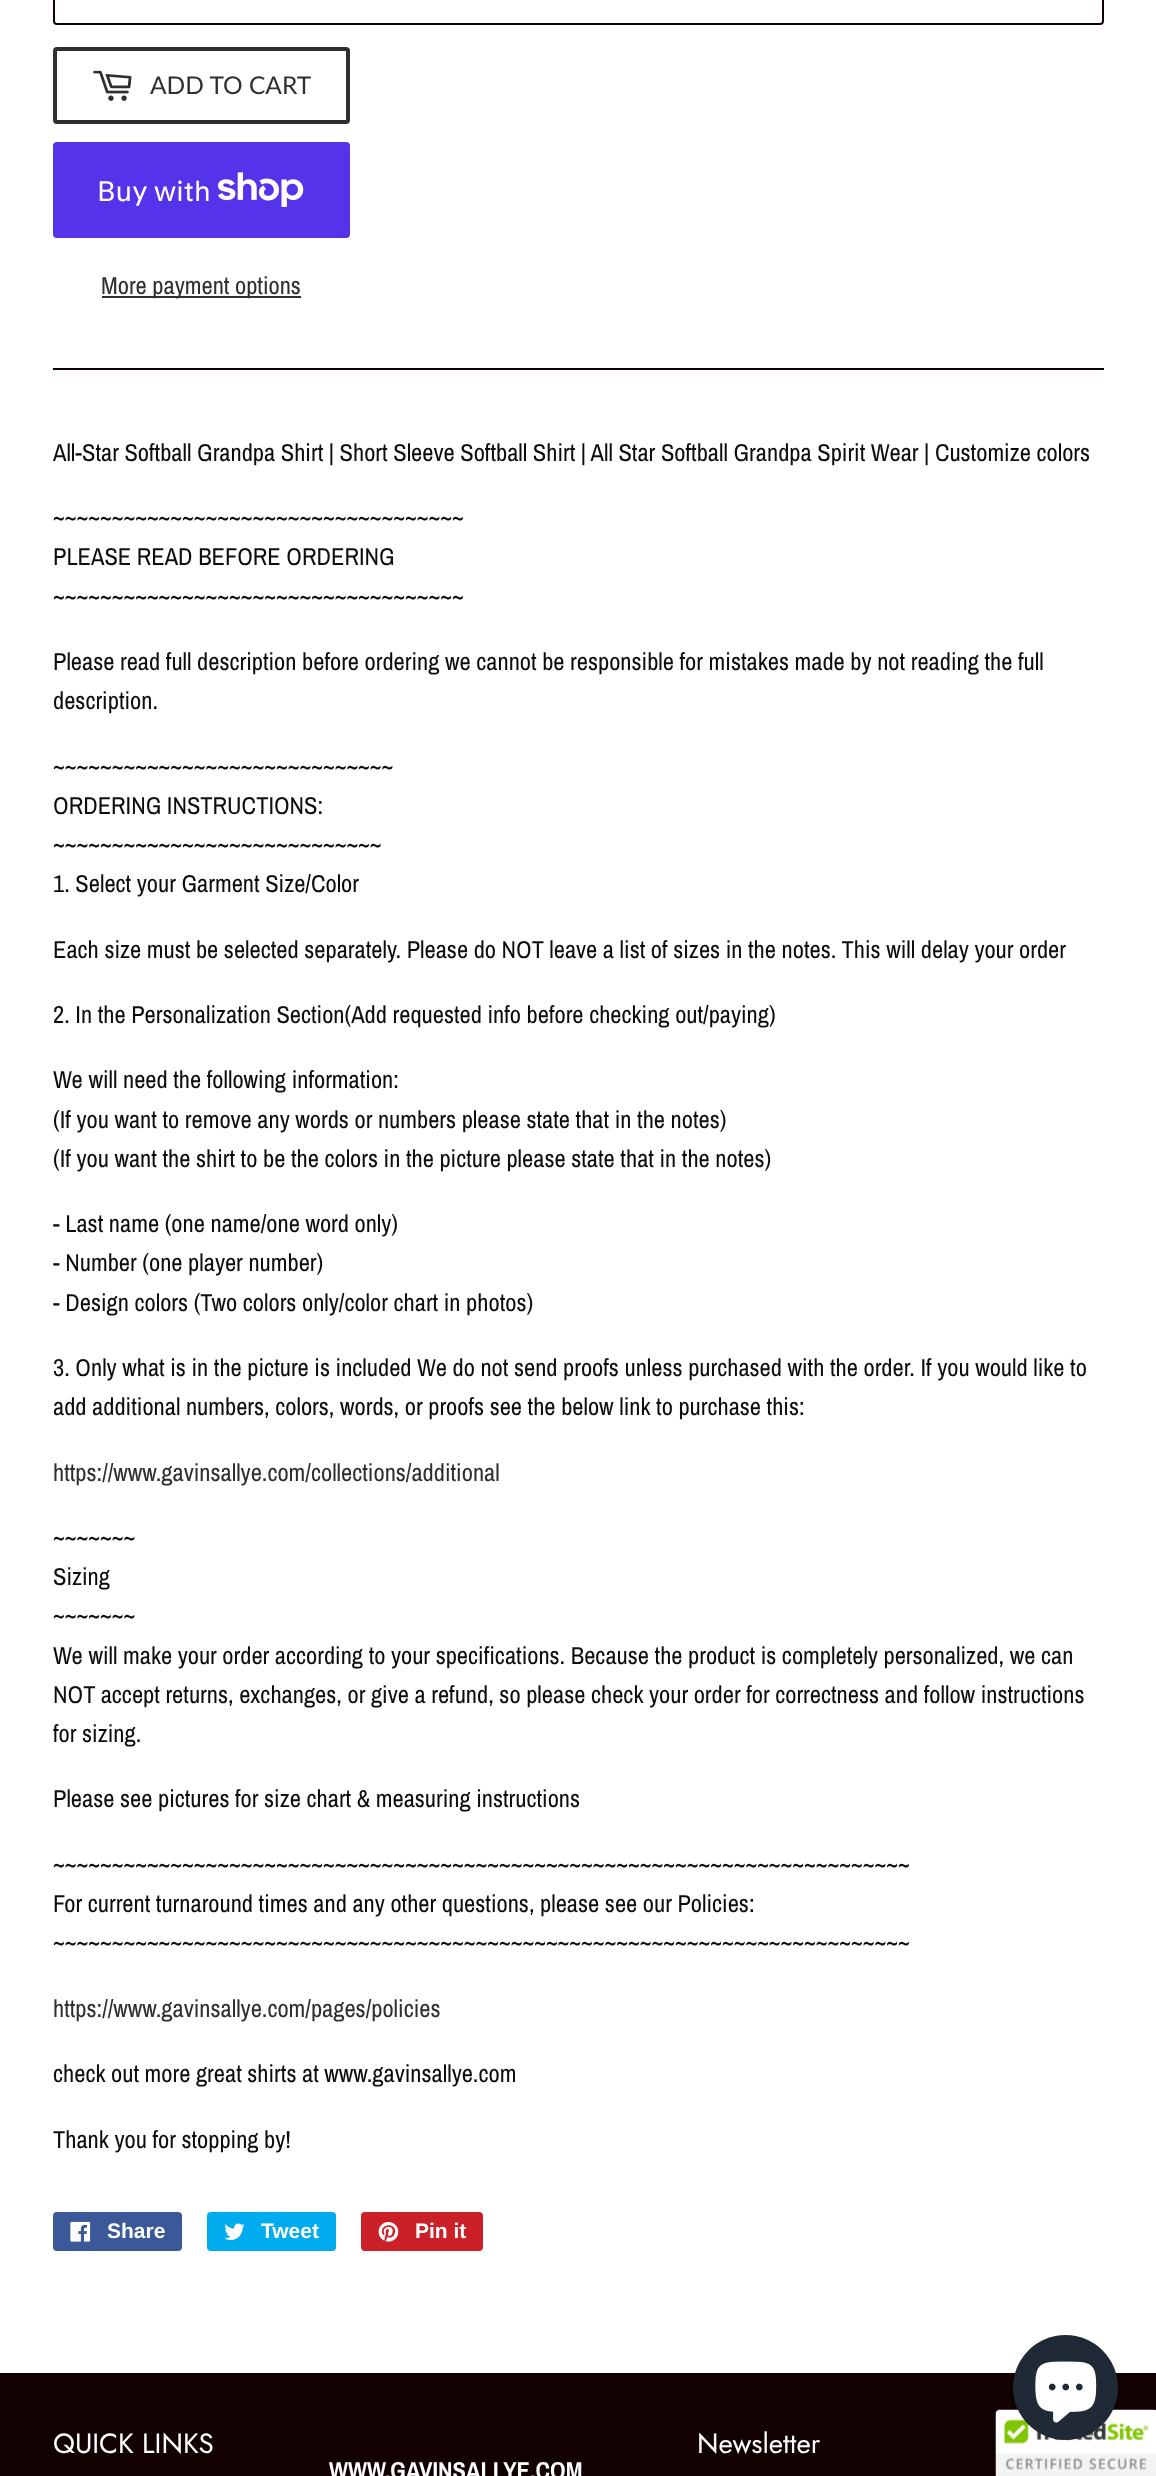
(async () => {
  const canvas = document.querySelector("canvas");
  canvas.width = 1156;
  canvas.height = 2476;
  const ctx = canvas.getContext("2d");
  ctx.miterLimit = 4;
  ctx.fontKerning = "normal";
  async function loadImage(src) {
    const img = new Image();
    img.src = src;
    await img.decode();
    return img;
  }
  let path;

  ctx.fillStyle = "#ffffff";
  ctx.fillRect(0, 0, 1156, 2476);
  ctx.beginPath();
  ctx.roundRect(54, -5, 1049, 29, 3);
  ctx.strokeStyle = "#110101";
  ctx.lineWidth = 2;
  ctx.stroke();
  ctx.beginPath();
  ctx.roundRect(55, 49, 293, 73, 2);
  ctx.strokeStyle = "#2f2f2f";
  ctx.lineWidth = 4;
  ctx.stroke();
  ctx.drawImage(await loadImage("img/1.png"), 93, 70, 39, 31);
  ctx.fillStyle = "#5433eb";
  ctx.beginPath();
  ctx.roundRect(53, 142, 297, 96, 4);
  ctx.fill();
  ctx.drawImage(await loadImage("img/2.png"), 218, 172, 86, 35);
  ctx.fillStyle = "#2f2f2f";
  ctx.fillRect(102, 296, 199, 2);
  ctx.fillStyle = "#110101";
  ctx.fillRect(53, 368, 1051, 2);
  ctx.fillStyle = "#3b5998";
  ctx.beginPath();
  ctx.roundRect(53, 2212, 129, 39, 4);
  ctx.fill();
  ctx.drawImage(await loadImage("img/3.png"), 70, 2221, 21, 21);
  ctx.fillStyle = "#00aced";
  ctx.beginPath();
  ctx.roundRect(207, 2212, 129, 39, 4);
  ctx.fill();
  ctx.drawImage(await loadImage("img/4.png"), 224, 2223, 21, 17);
  ctx.fillStyle = "#cb2027";
  ctx.beginPath();
  ctx.roundRect(361, 2212, 122, 39, 4);
  ctx.fill();
  ctx.drawImage(await loadImage("img/5.png"), 378, 2222, 21, 20);
  ctx.fillStyle = "#110101";
  ctx.fillRect(0, 2373, 1156, 103);
  ctx.fillStyle = "#ffffff";
  path = new Path2D("M1000 2410H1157V2476H996V2414C996 2412 998 2410 1000 2410Z");
  ctx.fill(path);
  ctx.drawImage(await loadImage("img/7.png"), 995, 2409, 161, 67);
  ctx.fillStyle = "#202a36";
  ctx.beginPath();
  ctx.arc(1065.5, 2387.5, 52.5, 0, Math.PI * 2);
  ctx.fill();
  ctx.drawImage(await loadImage("img/6.png"), 1035, 2361, 62, 62);
  ctx.font = "24.5px Lato";
  ctx.fillStyle = "#2f2f2f";
  ctx.fillText("ADD TO CART", 150, 94);
  ctx.font = "28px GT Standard";
  ctx.fillStyle = "#ffffff";
  ctx.fillText("Buy with", 97, 201);
  ctx.font = "24.5px Archivo Narrow";
  ctx.fillStyle = "#2f2f2f";
  ctx.fillText("More payment options", 101, 294);
  ctx.fillStyle = "#0e0d0d";
  for (const [text, x, y] of [
    ["All-Star Softball Grandpa Shirt | Short Sleeve Softball Shirt | All Star Softball Grandpa Spirit Wear | Customize colors", 53, 461],
    ["~~~~~~~~~~~~~~~~~~~~~~~~~~~~~~~~~~~", 53, 526],
    ["PLEASE READ BEFORE ORDERING", 53, 565],
    ["~~~~~~~~~~~~~~~~~~~~~~~~~~~~~~~~~~~", 53, 605],
    ["Please read full description before ordering we cannot be responsible for mistakes made by not reading the full", 53, 670],
    ["description.", 53, 709],
    ["~~~~~~~~~~~~~~~~~~~~~~~~~~~~~", 53, 775],
    ["ORDERING INSTRUCTIONS:", 53, 814],
    ["~~~~~~~~~~~~~~~~~~~~~~~~~~~~", 53, 853],
    ["1. Select your Garment Size/Color", 53, 892],
    ["Each size must be selected separately. Please do NOT leave a list of sizes in the notes. This will delay your order", 53, 958],
    ["2. In the Personalization Section(Add requested info before checking out/paying)", 53, 1023],
    ["We will need the following information:", 53, 1088],
    ["(If you want to remove any words or numbers please state that in the notes)", 53, 1128],
    ["(If you want the shirt to be the colors in the picture please state that in the notes)", 53, 1167],
    ["- Last name (one name/one word only)", 53, 1232],
    ["- Number (one player number)", 53, 1271],
    ["- Design colors (Two colors only/color chart in photos)", 53, 1311],
    ["3. Only what is in the picture is included We do not send proofs unless purchased with the order. If you would like to", 53, 1376],
    ["add additional numbers, colors, words, or proofs see the below link to purchase this:", 53, 1415],
  ]) {
    ctx.fillText(text, x, y);
  }
  ctx.fillStyle = "#2f2f2f";
  ctx.fillText("https://www.gavinsallye.com/collections/additional", 53, 1481);
  ctx.fillStyle = "#0e0d0d";
  for (const [text, x, y] of [
    ["~~~~~~~", 53, 1546],
    ["Sizing", 53, 1585],
    ["~~~~~~~", 53, 1624],
    ["We will make your order according to your specifications. Because the product is completely personalized, we can", 53, 1664],
    ["NOT accept returns, exchanges, or give a refund, so please check your order for correctness and follow instructions", 53, 1703],
    ["for sizing.", 53, 1742],
    ["Please see pictures for size chart & measuring instructions", 53, 1807],
    ["~~~~~~~~~~~~~~~~~~~~~~~~~~~~~~~~~~~~~~~~~~~~~~~~~~~~~~~~~~~~~~~~~~~~~~~~~", 53, 1873],
    ["For current turnaround times and any other questions, please see our Policies:", 53, 1912],
    ["~~~~~~~~~~~~~~~~~~~~~~~~~~~~~~~~~~~~~~~~~~~~~~~~~~~~~~~~~~~~~~~~~~~~~~~~~", 53, 1951],
  ]) {
    ctx.fillText(text, x, y);
  }
  ctx.fillStyle = "#2f2f2f";
  ctx.fillText("https://www.gavinsallye.com/pages/policies", 53, 2017);
  ctx.fillStyle = "#0e0d0d";
  ctx.fillText("check out more great shirts at www.gavinsallye.com", 53, 2082);
  ctx.fillText("Thank you for stopping by!", 53, 2148);
  ctx.font = "bold 21px Liberation Sans";
  ctx.fillStyle = "#ffffff";
  for (const [text, x, y] of [
    ["Share", 107, 2238],
    ["Tweet", 261, 2238],
    ["Pin it", 415, 2238],
  ]) {
    ctx.fillText(text, x, y);
  }
  ctx.font = "27.75px Jost";
  ctx.fillText("QUICK LINKS", 53, 2453);
  ctx.fillText("Newsletter", 697, 2453);
  ctx.font = "bold 24.5px Archivo Narrow";
  ctx.fillText("WWW.GAVINSALLYE.COM", 329, 2479);
})();
